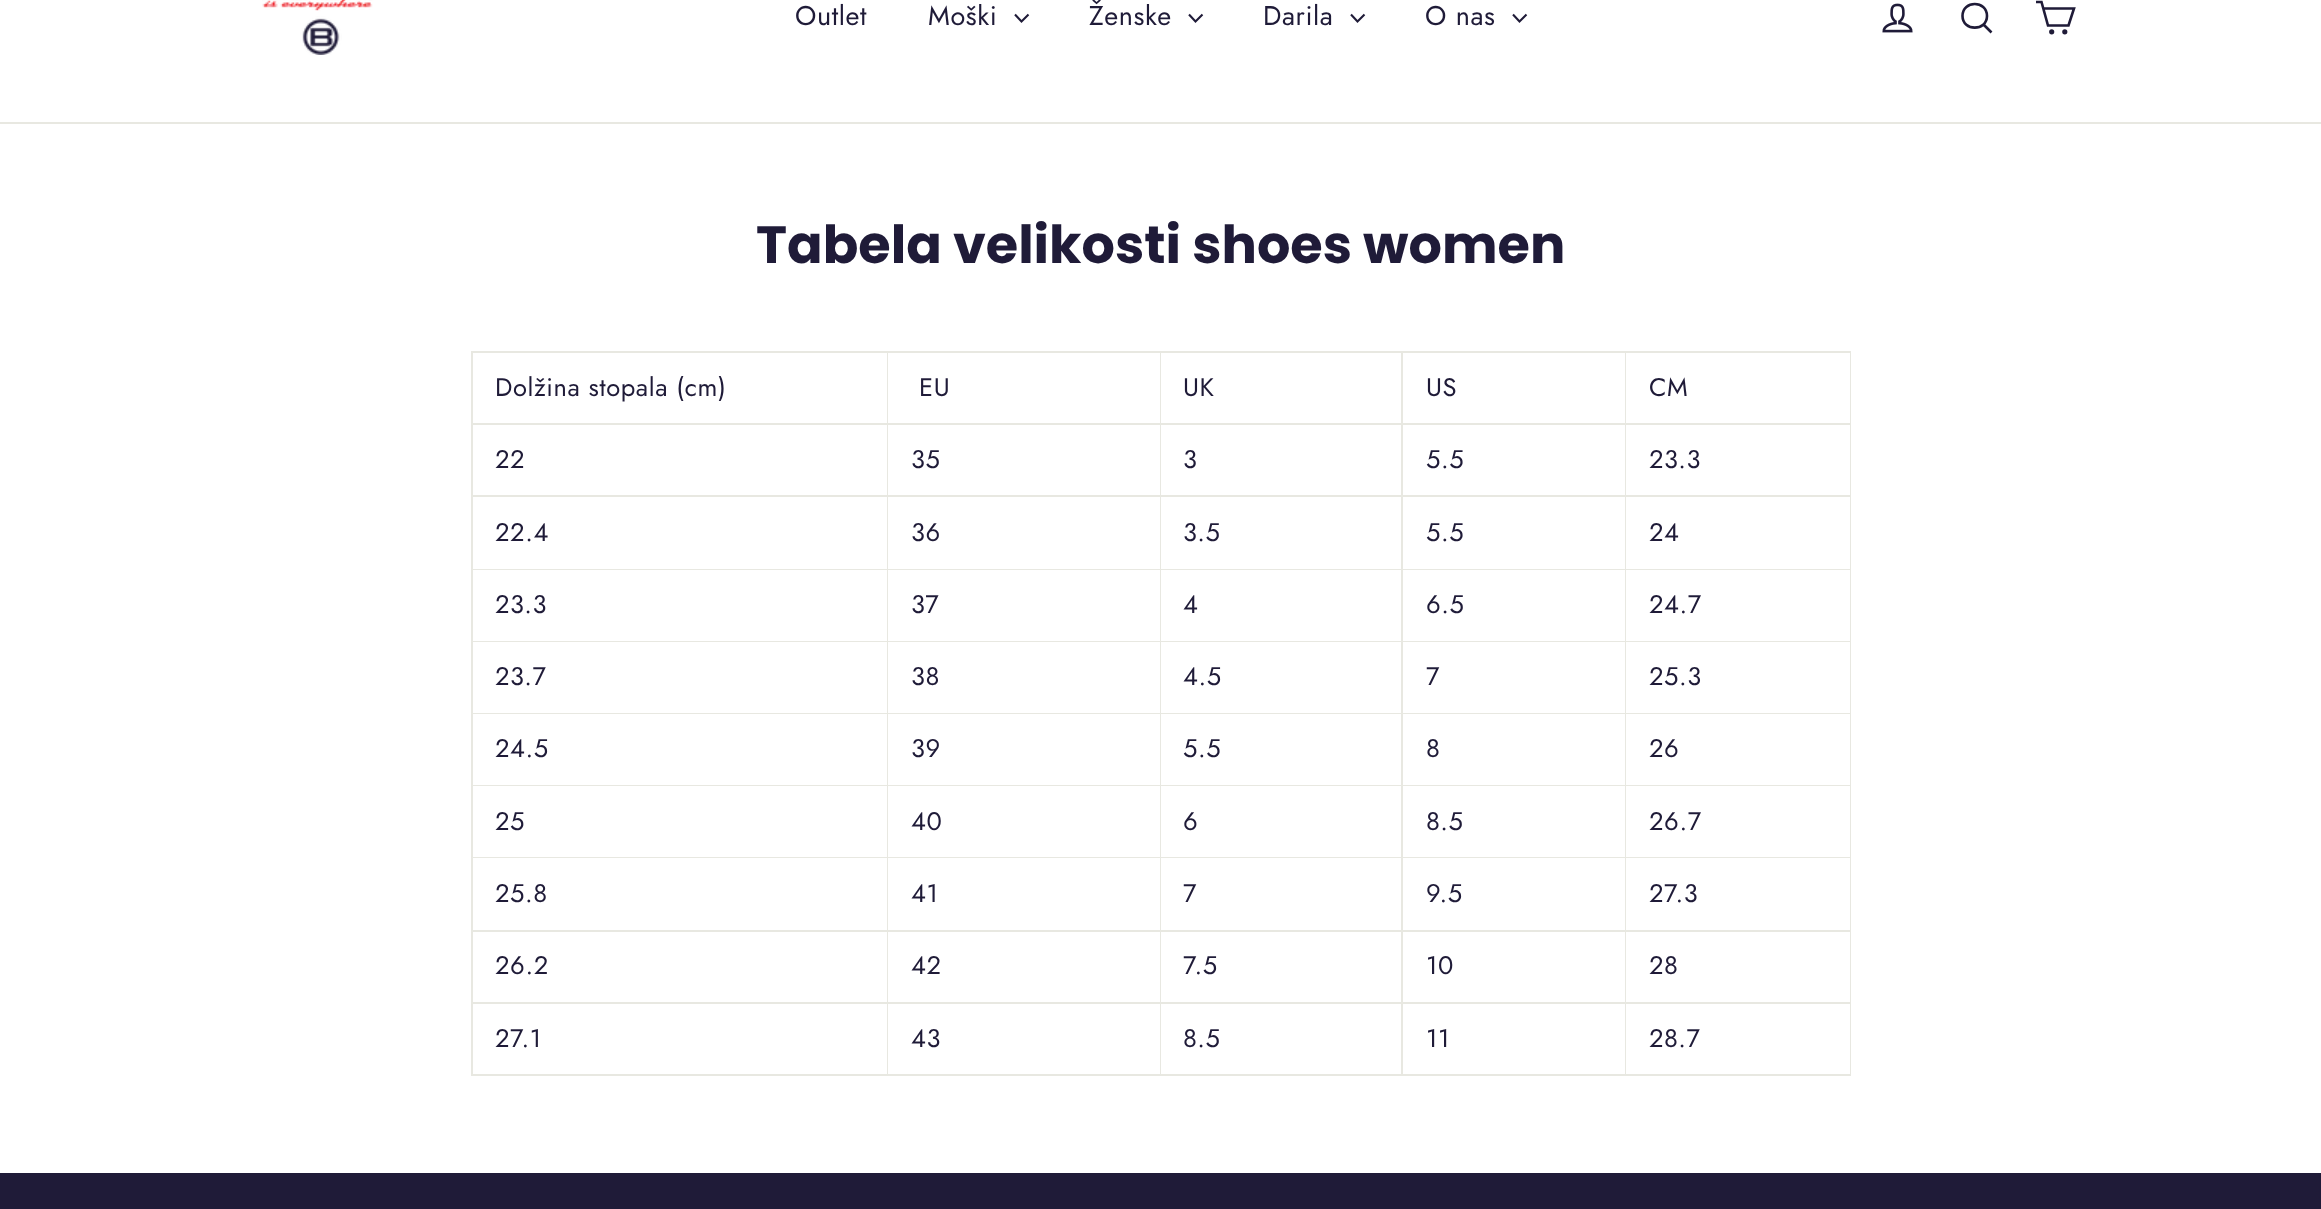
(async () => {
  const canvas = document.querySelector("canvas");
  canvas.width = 2321;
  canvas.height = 1209;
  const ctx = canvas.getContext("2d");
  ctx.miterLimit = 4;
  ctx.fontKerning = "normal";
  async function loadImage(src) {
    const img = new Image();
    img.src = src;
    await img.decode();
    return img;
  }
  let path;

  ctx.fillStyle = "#ffffff";
  ctx.fillRect(0, 0, 2321, 1209);
  ctx.fillStyle = "#e8e8e1";
  ctx.fillRect(0, 122, 2321, 2);
  ctx.drawImage(await loadImage("img/1.png"), 262, 0, 111, 55);
  path = new Path2D("M1015 14.5L1021.5 21.5L1028.5 14.5");
  ctx.strokeStyle = "#1f1b38";
  ctx.lineWidth = 2.1;
  ctx.stroke(path);
  path = new Path2D("M1189 14.5L1195.5 21.5L1202.5 14.5");
  ctx.stroke(path);
  path = new Path2D("M1351 14.5L1357.5 21.5L1364.5 14.5");
  ctx.stroke(path);
  path = new Path2D("M1513 14.5L1519.5 21.5L1526.5 14.5");
  ctx.stroke(path);
  ctx.drawImage(await loadImage("img/2.png"), 1882, 3, 31, 30);
  path = new Path2D("M1987 16C1987 31.5 1962.5 31.5 1962.5 16C1962.5 0 1987 0 1987 16ZM1991.5 32.5L1983.5 24.5");
  ctx.lineWidth = 2.6;
  ctx.stroke(path);
  path = new Path2D("M2043 8.5H2074L2068.5 25.5H2048L2041.5 2H2036");
  ctx.stroke(path);
  ctx.beginPath();
  ctx.arc(2051.7, 31.8, 1.3, 0, Math.PI * 2);
  ctx.stroke();
  ctx.beginPath();
  ctx.arc(2064.8, 31.8, 1.3, 0, Math.PI * 2);
  ctx.stroke();
  for (const [x, y, w, h, color] of [
    [471, 351, 1380, 725, "#e8e8e1"],
    [473, 353, 414, 70, "#ffffff"],
    [888, 353, 272, 70, "#ffffff"],
    [1161, 353, 240, 70, "#ffffff"],
    [1403, 353, 222, 70, "#ffffff"],
    [1626, 353, 224, 70, "#ffffff"],
    [473, 425, 414, 70, "#ffffff"],
    [888, 425, 272, 70, "#ffffff"],
    [1161, 425, 240, 70, "#ffffff"],
    [1403, 425, 222, 70, "#ffffff"],
    [1626, 425, 224, 70, "#ffffff"],
    [473, 497, 414, 72, "#ffffff"],
    [888, 497, 272, 72, "#ffffff"],
    [1161, 497, 240, 72, "#ffffff"],
    [1403, 497, 222, 72, "#ffffff"],
    [1626, 497, 224, 72, "#ffffff"],
    [473, 570, 414, 71, "#ffffff"],
    [888, 570, 272, 71, "#ffffff"],
    [1161, 570, 240, 71, "#ffffff"],
    [1403, 570, 222, 71, "#ffffff"],
    [1626, 570, 224, 71, "#ffffff"],
    [473, 642, 414, 71, "#ffffff"],
    [888, 642, 272, 71, "#ffffff"],
    [1161, 642, 240, 71, "#ffffff"],
    [1403, 642, 222, 71, "#ffffff"],
    [1626, 642, 224, 71, "#ffffff"],
    [473, 714, 414, 71, "#ffffff"],
    [888, 714, 272, 71, "#ffffff"],
    [1161, 714, 240, 71, "#ffffff"],
    [1403, 714, 222, 71, "#ffffff"],
    [1626, 714, 224, 71, "#ffffff"],
    [473, 786, 414, 71, "#ffffff"],
    [888, 786, 272, 71, "#ffffff"],
    [1161, 786, 240, 71, "#ffffff"],
    [1403, 786, 222, 71, "#ffffff"],
    [1626, 786, 224, 71, "#ffffff"],
    [473, 858, 414, 72, "#ffffff"],
    [888, 858, 272, 72, "#ffffff"],
    [1161, 858, 240, 72, "#ffffff"],
    [1403, 858, 222, 72, "#ffffff"],
    [1626, 858, 224, 72, "#ffffff"],
    [473, 932, 414, 70, "#ffffff"],
    [888, 932, 272, 70, "#ffffff"],
    [1161, 932, 240, 70, "#ffffff"],
    [1403, 932, 222, 70, "#ffffff"],
    [1626, 932, 224, 70, "#ffffff"],
    [473, 1004, 414, 70, "#ffffff"],
    [888, 1004, 272, 70, "#ffffff"],
    [1161, 1004, 240, 70, "#ffffff"],
    [1403, 1004, 222, 70, "#ffffff"],
    [1626, 1004, 224, 70, "#ffffff"],
    [0, 1173, 2321, 36, "#1f1b38"],
  ]) {
    ctx.fillStyle = color;
    ctx.fillRect(x, y, w, h);
  }
  ctx.letterSpacing = "0.6px";
  ctx.font = "27px Jost";
  for (const [text, x, y] of [
    ["Outlet", 795, 25],
    ["Moški", 928, 25],
    ["Ženske", 1089, 25],
    ["Darila", 1263, 25],
    ["O nas", 1425, 25],
  ]) {
    ctx.fillText(text, x, y);
  }
  ctx.letterSpacing = "0px";
  ctx.font = "bold 52.5px Poppins";
  ctx.fillText("Tabela velikosti shoes women", 756, 263);
  ctx.letterSpacing = "0.6px";
  ctx.font = "25.5px Jost";
  for (const [text, x, y] of [
    ["Dolžina stopala (cm)", 495, 396],
    ["EU", 919, 396],
    ["UK", 1183, 396],
    ["US", 1426, 396],
    ["CM", 1649, 396],
    ["22", 495, 468],
    ["35", 911, 468],
    ["3", 1183, 468],
    ["5.5", 1426, 468],
    ["23.3", 1649, 468],
    ["22.4", 495, 541],
    ["36", 911, 541],
    ["3.5", 1183, 541],
    ["5.5", 1426, 541],
    ["24", 1649, 541],
    ["23.3", 495, 613],
    ["37", 911, 613],
    ["4", 1183, 613],
    ["6.5", 1426, 613],
    ["24.7", 1649, 613],
    ["23.7", 495, 685],
    ["38", 911, 685],
    ["4.5", 1183, 685],
    ["7", 1426, 685],
    ["25.3", 1649, 685],
    ["24.5", 495, 757],
    ["39", 911, 757],
    ["5.5", 1183, 757],
    ["8", 1426, 757],
    ["26", 1649, 757],
    ["25", 495, 830],
    ["40", 911, 830],
    ["6", 1183, 830],
    ["8.5", 1426, 830],
    ["26.7", 1649, 830],
    ["25.8", 495, 902],
    ["41", 911, 902],
    ["7", 1183, 902],
    ["9.5", 1426, 902],
    ["27.3", 1649, 902],
    ["26.2", 495, 974],
    ["42", 911, 974],
    ["7.5", 1183, 974],
    ["10", 1426, 974],
    ["28", 1649, 974],
    ["27.1", 495, 1047],
    ["43", 911, 1047],
    ["8.5", 1183, 1047],
    ["11", 1426, 1047],
    ["28.7", 1649, 1047],
  ]) {
    ctx.fillText(text, x, y);
  }
})();
